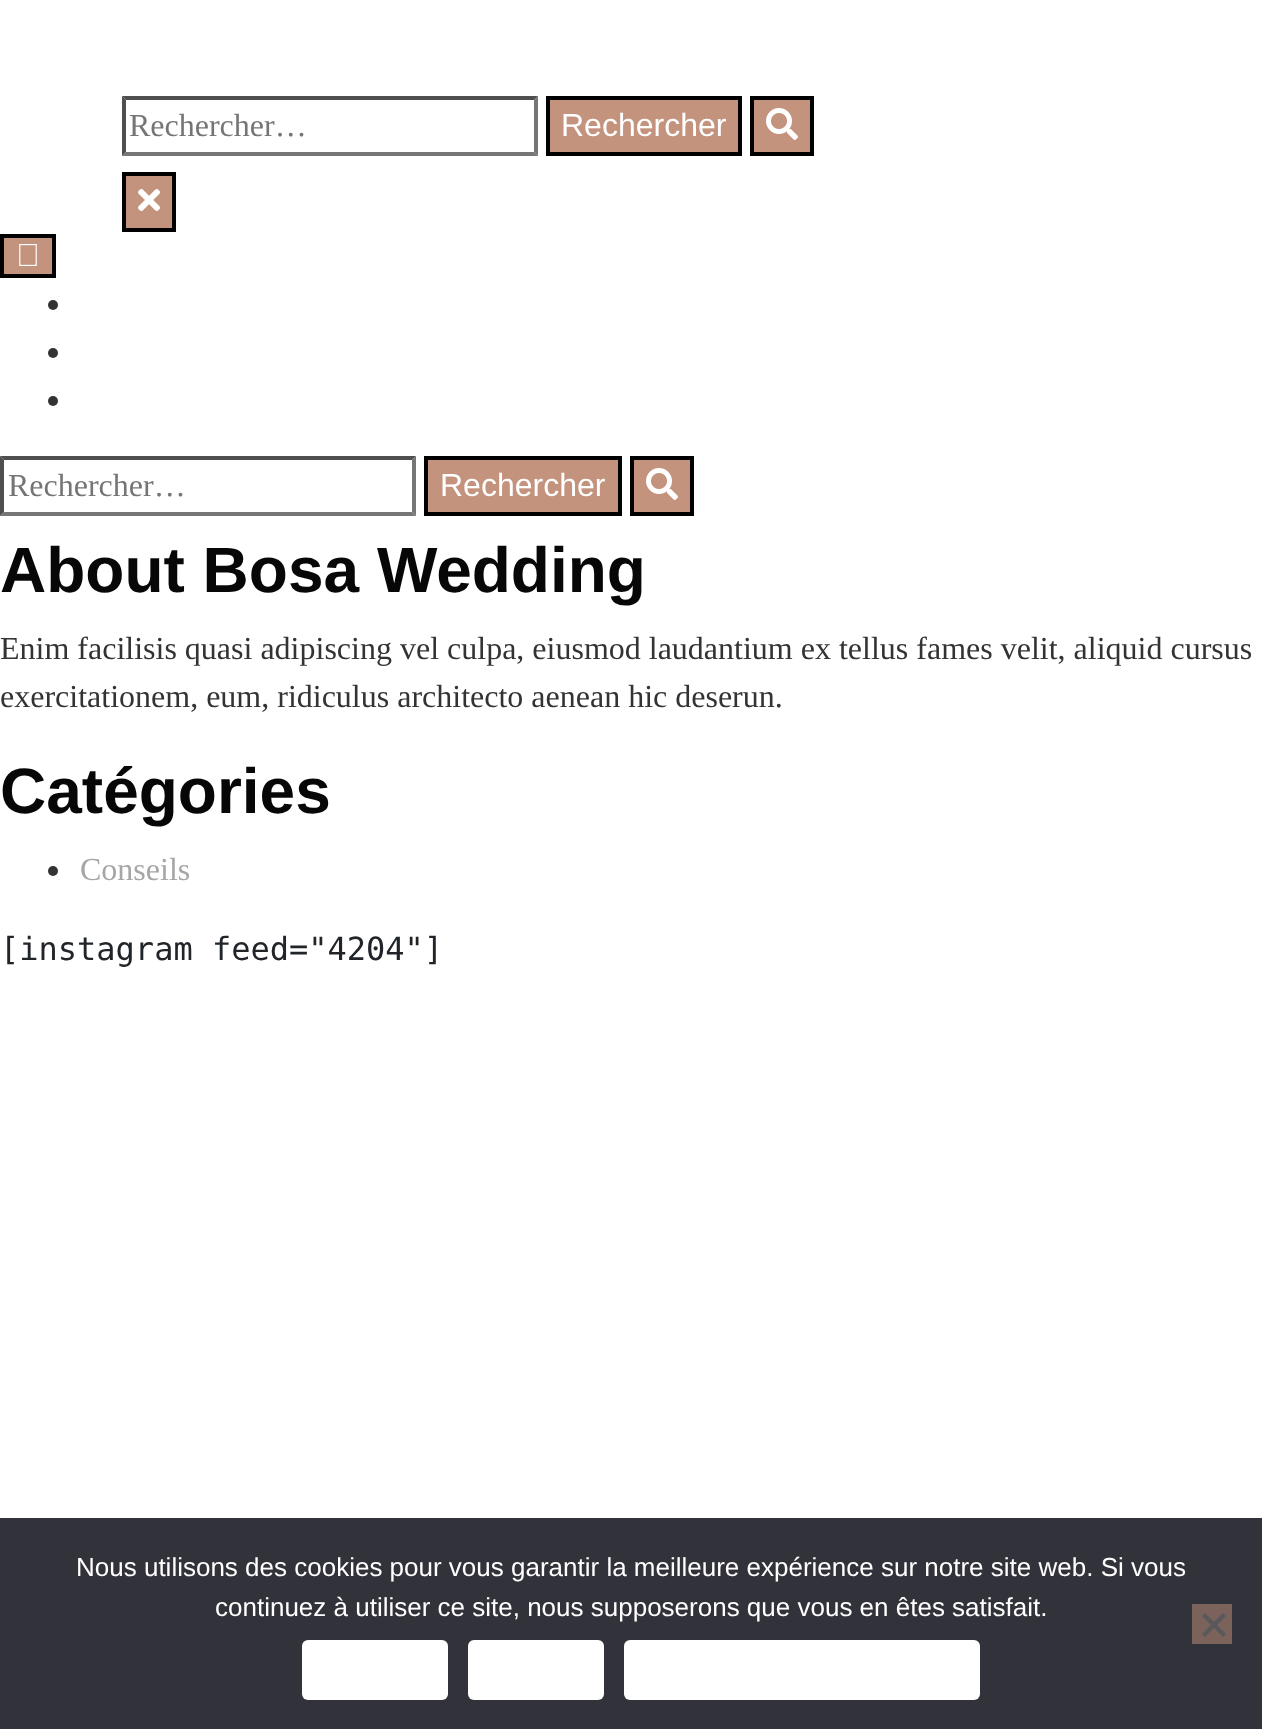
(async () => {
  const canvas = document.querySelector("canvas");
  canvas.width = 1262;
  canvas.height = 1729;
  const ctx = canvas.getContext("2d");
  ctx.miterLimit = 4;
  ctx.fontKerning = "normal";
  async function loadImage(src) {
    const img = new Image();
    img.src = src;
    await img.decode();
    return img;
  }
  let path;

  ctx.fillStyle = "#ffffff";
  ctx.fillRect(0, 0, 1262, 1729);
  ctx.fillStyle = "#4f4f4f";
  path = new Path2D("M122 96H538L534 100H126Z");
  ctx.fill(path);
  ctx.fillStyle = "#767676";
  path = new Path2D("M538 96V156L534 152V100Z");
  ctx.fill(path);
  path = new Path2D("M538 156H122L126 152H534Z");
  ctx.fill(path);
  ctx.fillStyle = "#4f4f4f";
  path = new Path2D("M122 156V96L126 100V152Z");
  ctx.fill(path);
  ctx.fillStyle = "#c4937d";
  ctx.beginPath();
  ctx.rect(548, 98, 192, 56);
  ctx.fill();
  ctx.strokeStyle = "#000000";
  ctx.lineWidth = 4;
  ctx.stroke();
  ctx.beginPath();
  ctx.rect(752, 98, 60, 56);
  ctx.fill();
  ctx.stroke();
  ctx.drawImage(await loadImage("img/1.png"), 766, 108, 32, 32);
  ctx.beginPath();
  ctx.rect(124, 174, 50, 56);
  ctx.fill();
  ctx.stroke();
  ctx.drawImage(await loadImage("img/2.png"), 138, 189, 22, 22);
  ctx.beginPath();
  ctx.rect(2, 236, 52, 40);
  ctx.fill();
  ctx.stroke();
  ctx.drawImage(await loadImage("img/3.png"), 19, 244, 18, 22);
  ctx.fillStyle = "#333333";
  ctx.beginPath();
  ctx.arc(53, 305, 5, 0, Math.PI * 2);
  ctx.fill();
  ctx.beginPath();
  ctx.arc(53, 353, 5, 0, Math.PI * 2);
  ctx.fill();
  ctx.beginPath();
  ctx.arc(53, 401, 5, 0, Math.PI * 2);
  ctx.fill();
  ctx.fillStyle = "#4f4f4f";
  path = new Path2D("M0 456H416L412 460H4Z");
  ctx.fill(path);
  ctx.fillStyle = "#767676";
  path = new Path2D("M416 456V516L412 512V460Z");
  ctx.fill(path);
  path = new Path2D("M416 516H0L4 512H412Z");
  ctx.fill(path);
  ctx.fillStyle = "#4f4f4f";
  path = new Path2D("M0 516V456L4 460V512Z");
  ctx.fill(path);
  ctx.fillStyle = "#c4937d";
  ctx.beginPath();
  ctx.rect(426, 458, 194, 56);
  ctx.fill();
  ctx.stroke();
  ctx.beginPath();
  ctx.rect(632, 458, 60, 56);
  ctx.fill();
  ctx.stroke();
  ctx.drawImage(await loadImage("img/1.png"), 646, 468, 32, 32);
  ctx.fillStyle = "#333333";
  ctx.beginPath();
  ctx.arc(53, 871, 5, 0, Math.PI * 2);
  ctx.fill();
  ctx.fillStyle = "#32323a";
  ctx.fillRect(0, 1518, 1262, 211);
  ctx.fillStyle = "#7b635c";
  ctx.fillRect(1192, 1604, 40, 40);
  ctx.fillStyle = "#59595d";
  path = new Path2D("M1223 1613L1226 1616L1205 1637L1202 1634Z");
  ctx.fill(path);
  path = new Path2D("M1202 1616L1205 1613L1226 1634L1223 1637Z");
  ctx.fill(path);
  ctx.fillStyle = "#ffffff";
  ctx.beginPath();
  ctx.roundRect(302, 1640, 146, 60, 6);
  ctx.fill();
  ctx.beginPath();
  ctx.roundRect(468, 1640, 136, 60, 6);
  ctx.fill();
  ctx.beginPath();
  ctx.roundRect(624, 1640, 356, 60, 6);
  ctx.fill();
  ctx.font = "32px Liberation Serif";
  ctx.fillStyle = "#757575";
  ctx.fillText("Rechercher…", 129, 136);
  ctx.font = "32px Liberation Sans";
  ctx.fillStyle = "#ffffff";
  ctx.fillText("Rechercher", 561, 136);
  ctx.font = "32px Liberation Serif";
  ctx.fillStyle = "#757575";
  ctx.fillText("Rechercher…", 8, 496);
  ctx.font = "32px Liberation Sans";
  ctx.fillStyle = "#ffffff";
  ctx.fillText("Rechercher", 440, 496);
  ctx.font = "bold 64px Liberation Sans";
  ctx.fillStyle = "#070707";
  ctx.fillText("About Bosa Wedding", 0, 592);
  ctx.font = "32px Liberation Serif";
  ctx.fillStyle = "#333333";
  ctx.fillText("Enim facilisis quasi adipiscing vel culpa, eiusmod laudantium ex tellus fames velit, aliquid cursus", 0, 659);
  ctx.fillText("exercitationem, eum, ridiculus architecto aenean hic deserun.", 0, 707);
  ctx.font = "bold 64px Liberation Sans";
  ctx.fillStyle = "#070707";
  ctx.fillText("Catégories", 0, 813);
  ctx.font = "32px Liberation Serif";
  ctx.fillStyle = "#a6a6a6";
  ctx.fillText("Conseils", 80, 880);
  ctx.font = "32px DejaVu Sans Mono";
  ctx.fillStyle = "#212529";
  ctx.fillText("[instagram feed=\"4204\"]", 0, 960);
  ctx.font = "26px Liberation Sans";
  ctx.fillStyle = "#ffffff";
  ctx.fillText("Nous utilisons des cookies pour vous garantir la meilleure expérience sur notre site web. Si vous", 76, 1576);
  ctx.fillText("continuez à utiliser ce site, nous supposerons que vous en êtes satisfait.", 215, 1616);
})();
